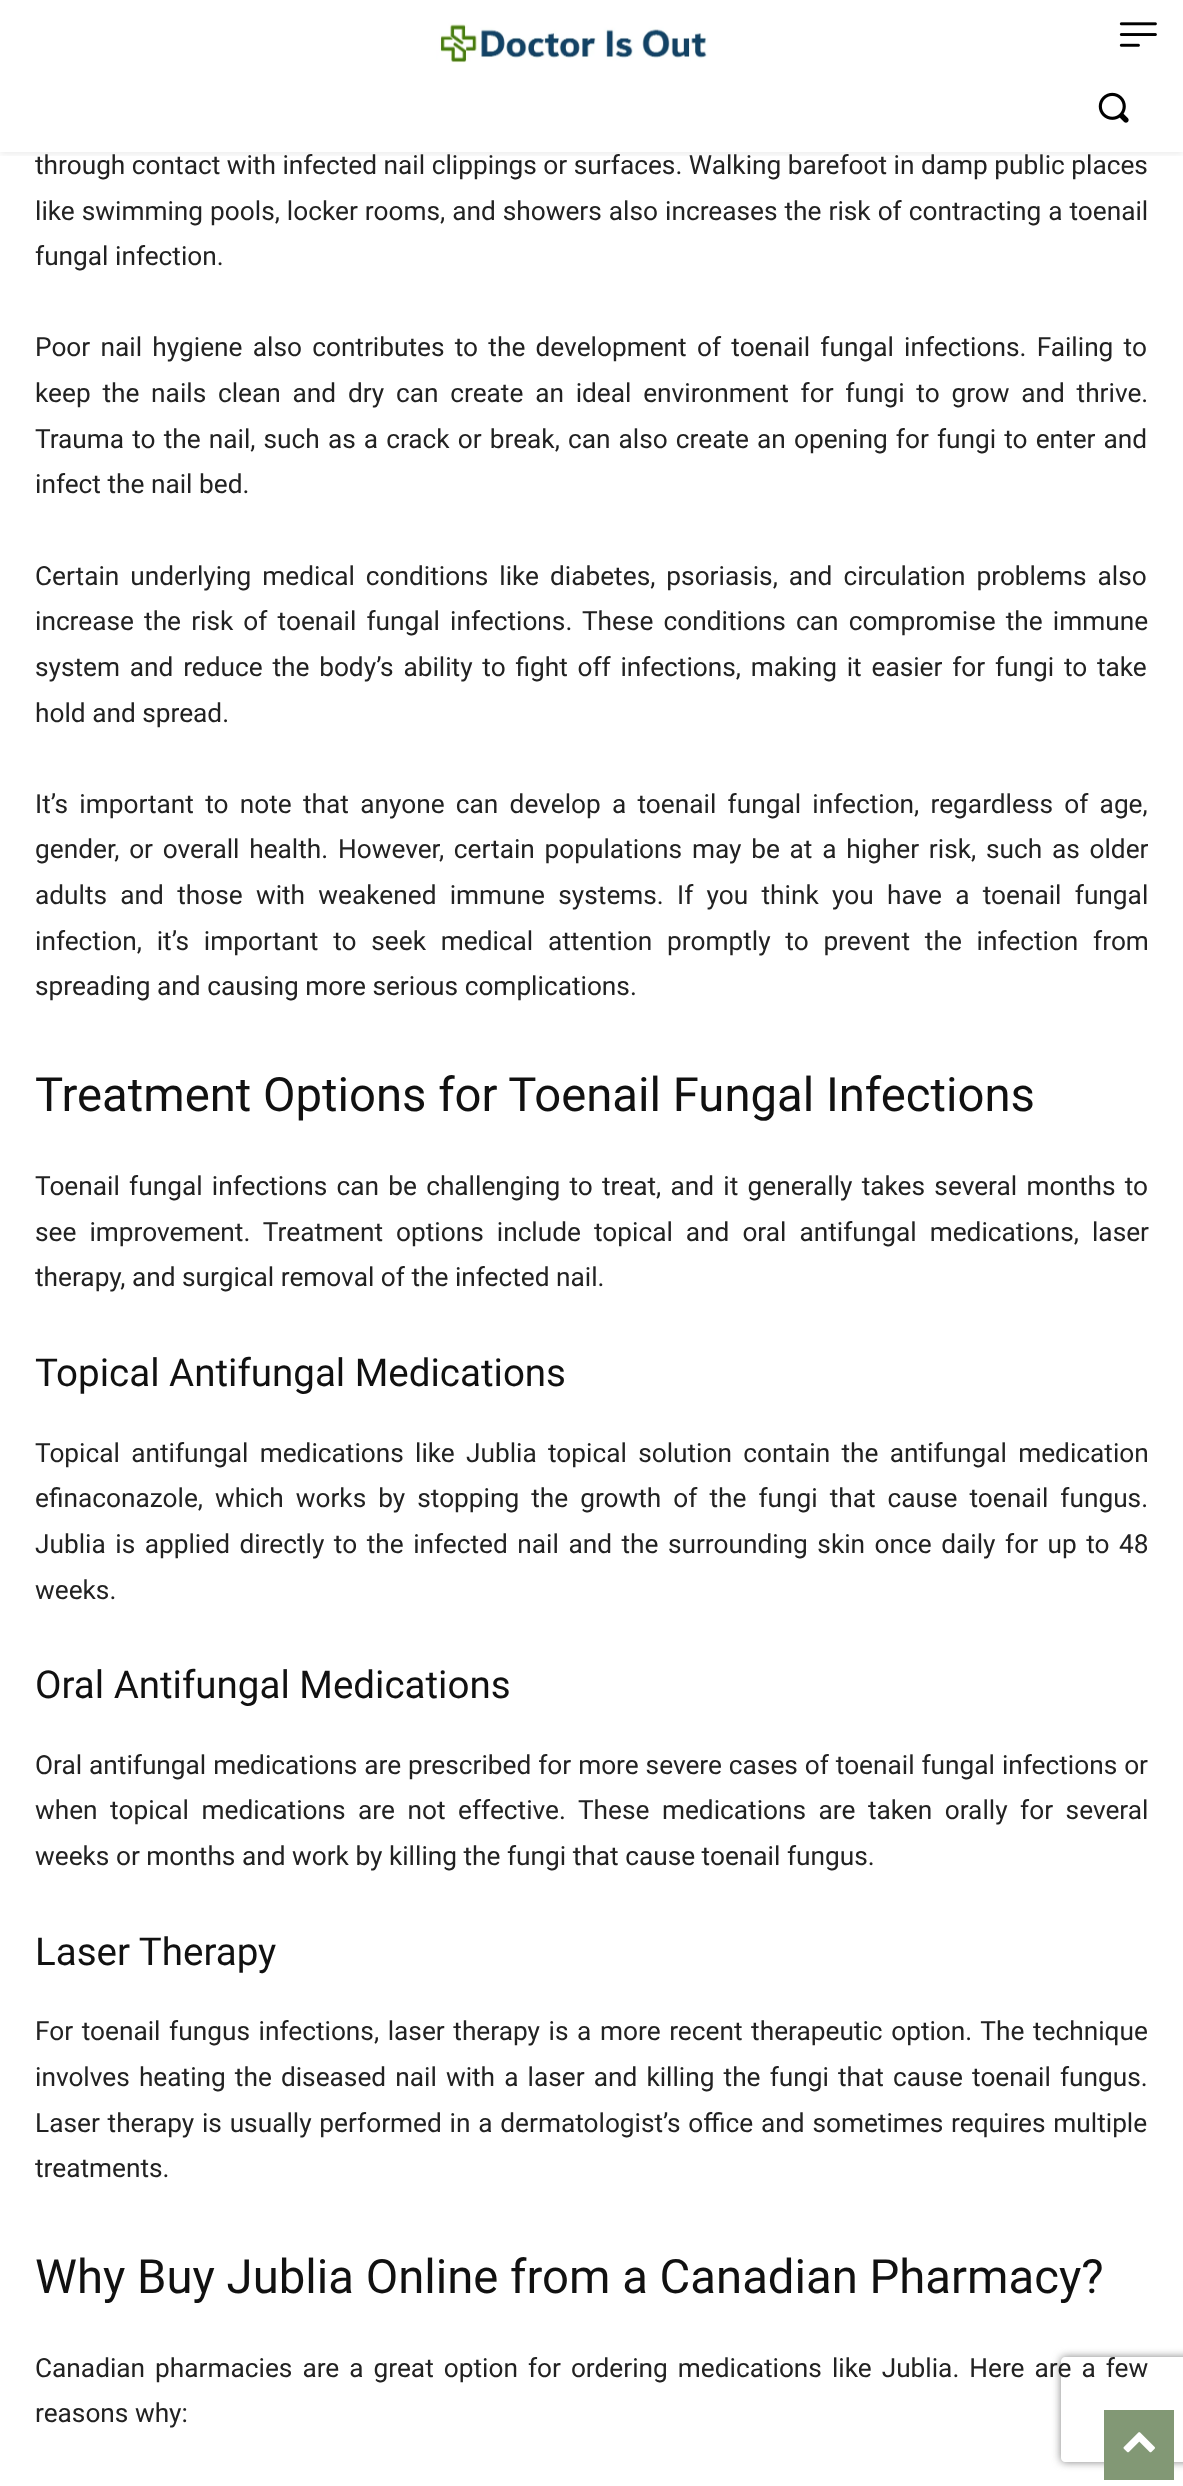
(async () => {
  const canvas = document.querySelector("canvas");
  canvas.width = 1183;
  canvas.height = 2486;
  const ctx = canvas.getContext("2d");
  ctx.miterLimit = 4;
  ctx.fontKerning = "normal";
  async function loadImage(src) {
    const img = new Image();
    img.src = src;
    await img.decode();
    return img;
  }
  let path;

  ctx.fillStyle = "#ffffff";
  ctx.fillRect(0, 0, 1183, 2486);
  ctx.drawImage(await loadImage("img/1.png"), 436, 11, 280, 52);
  ctx.drawImage(await loadImage("img/2.png"), 1119, 22, 38, 25);
  ctx.drawImage(await loadImage("img/3.png"), 1098, 92, 31, 31);
  ctx.save();
  ctx.beginPath();
  ctx.rect(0, 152, 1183, 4);
  ctx.clip();
  ctx.fillStyle = "rgba(0, 0, 0, 0.08)";
  ctx.filter = "blur(3.5px)";
  ctx.beginPath();
  ctx.rect(0, 2, 1183, 152);
  ctx.fill();
  ctx.filter = "none";
  ctx.restore();
  ctx.save();
  path = new Path2D("M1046 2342H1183V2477H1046ZM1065 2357H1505C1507 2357 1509 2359 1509 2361V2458C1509 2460 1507 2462 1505 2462H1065C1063 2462 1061 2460 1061 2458V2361C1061 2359 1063 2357 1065 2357Z");
  ctx.clip(path, "evenodd");
  ctx.fillStyle = "#808080";
  ctx.filter = "blur(4.5px)";
  ctx.beginPath();
  ctx.roundRect(1061, 2357, 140, 105, 4);
  ctx.fill();
  ctx.filter = "none";
  ctx.restore();
  ctx.fillStyle = "#829875";
  ctx.fillRect(1104, 2410, 70, 70);
  ctx.drawImage(await loadImage("img/4.png"), 1123, 2432, 32, 21);
  ctx.font = "26.25px Roboto";
  ctx.fillStyle = "#222222";
  ctx.fillText("through contact with infected nail clippings or surfaces. Walking barefoot in damp public places", 35, 174);
  ctx.wordSpacing = "0.5px";
  ctx.fillText("like swimming pools, locker rooms, and showers also increases the risk of contracting a toenail", 35, 220);
  ctx.wordSpacing = "0px";
  ctx.fillText("fungal infection.", 35, 265);
  ctx.wordSpacing = "3.75px";
  ctx.fillText("Poor nail hygiene also contributes to the development of toenail fungal infections. Failing to", 35, 356);
  ctx.wordSpacing = "5.25px";
  ctx.fillText("keep the nails clean and dry can create an ideal environment for fungi to grow and thrive.", 35, 402);
  ctx.wordSpacing = "1.6px";
  ctx.fillText("Trauma to the nail, such as a crack or break, can also create an opening for fungi to enter and", 35, 448);
  ctx.wordSpacing = "0px";
  ctx.fillText("infect the nail bed.", 35, 493);
  ctx.wordSpacing = "4.5px";
  ctx.fillText("Certain underlying medical conditions like diabetes, psoriasis, and circulation problems also", 35, 585);
  ctx.wordSpacing = "3.6px";
  ctx.fillText("increase the risk of toenail fungal infections. These conditions can compromise the immune", 35, 630);
  ctx.wordSpacing = "3.25px";
  ctx.fillText("system and reduce the body’s ability to fight off infections, making it easier for fungi to take", 35, 676);
  ctx.wordSpacing = "0px";
  ctx.fillText("hold and spread.", 35, 722);
  ctx.wordSpacing = "4.75px";
  ctx.fillText("It’s important to note that anyone can develop a toenail fungal infection, regardless of age,", 35, 813);
  ctx.wordSpacing = "3.25px";
  ctx.fillText("gender, or overall health. However, certain populations may be at a higher risk, such as older", 35, 858);
  ctx.wordSpacing = "6.75px";
  ctx.fillText("adults and those with weakened immune systems. If you think you have a toenail fungal", 35, 904);
  ctx.wordSpacing = "8.25px";
  ctx.fillText("infection, it’s important to seek medical attention promptly to prevent the infection from", 35, 950);
  ctx.wordSpacing = "0px";
  ctx.fillText("spreading and causing more serious complications.", 35, 995);
  ctx.font = "47.25px Roboto";
  ctx.fillStyle = "#111111";
  ctx.fillText("Treatment Options for Toenail Fungal Infections", 35, 1111);
  ctx.wordSpacing = "2.75px";
  ctx.font = "26.25px Roboto";
  ctx.fillStyle = "#222222";
  ctx.fillText("Toenail fungal infections can be challenging to treat, and it generally takes several months to", 35, 1195);
  ctx.wordSpacing = "6.5px";
  ctx.fillText("see improvement. Treatment options include topical and oral antifungal medications, laser", 35, 1241);
  ctx.wordSpacing = "0px";
  ctx.fillText("therapy, and surgical removal of the infected nail.", 35, 1286);
  ctx.font = "38.5px Roboto";
  ctx.fillStyle = "#111111";
  ctx.fillText("Topical Antifungal Medications", 35, 1386);
  ctx.wordSpacing = "4.75px";
  ctx.font = "26.25px Roboto";
  ctx.fillStyle = "#222222";
  ctx.fillText("Topical antifungal medications like Jublia topical solution contain the antifungal medication", 35, 1462);
  ctx.wordSpacing = "5.5px";
  ctx.fillText("efinaconazole, which works by stopping the growth of the fungi that cause toenail fungus.", 35, 1507);
  ctx.wordSpacing = "3px";
  ctx.fillText("Jublia is applied directly to the infected nail and the surrounding skin once daily for up to 48", 35, 1553);
  ctx.wordSpacing = "0px";
  ctx.fillText("weeks.", 35, 1599);
  ctx.font = "38.5px Roboto";
  ctx.fillStyle = "#111111";
  ctx.fillText("Oral Antifungal Medications", 35, 1698);
  ctx.wordSpacing = "0.4px";
  ctx.font = "26.25px Roboto";
  ctx.fillStyle = "#222222";
  ctx.fillText("Oral antifungal medications are prescribed for more severe cases of toenail fungal infections or", 35, 1774);
  ctx.wordSpacing = "6px";
  ctx.fillText("when topical medications are not effective. These medications are taken orally for several", 35, 1819);
  ctx.wordSpacing = "0px";
  ctx.fillText("weeks or months and work by killing the fungi that cause toenail fungus.", 35, 1865);
  ctx.font = "38.5px Roboto";
  ctx.fillStyle = "#111111";
  ctx.fillText("Laser Therapy", 35, 1965);
  ctx.wordSpacing = "2.1px";
  ctx.font = "26.25px Roboto";
  ctx.fillStyle = "#222222";
  ctx.fillText("For toenail fungus infections, laser therapy is a more recent therapeutic option. The technique", 35, 2040);
  ctx.wordSpacing = "2.6px";
  ctx.fillText("involves heating the diseased nail with a laser and killing the fungi that cause toenail fungus.", 35, 2086);
  ctx.wordSpacing = "1.25px";
  ctx.fillText("Laser therapy is usually performed in a dermatologist’s office and sometimes requires multiple", 35, 2132);
  ctx.wordSpacing = "0px";
  ctx.fillText("treatments.", 35, 2177);
  ctx.font = "47.25px Roboto";
  ctx.fillStyle = "#111111";
  ctx.fillText("Why Buy Jublia Online from a Canadian Pharmacy?", 35, 2293);
  ctx.wordSpacing = "3.5px";
  ctx.font = "26.25px Roboto";
  ctx.fillStyle = "#222222";
  ctx.fillText("Canadian pharmacies are a great option for ordering medications like Jublia. Here are a few", 35, 2377);
  ctx.wordSpacing = "0px";
  ctx.fillText("reasons why:", 35, 2422);
})();
